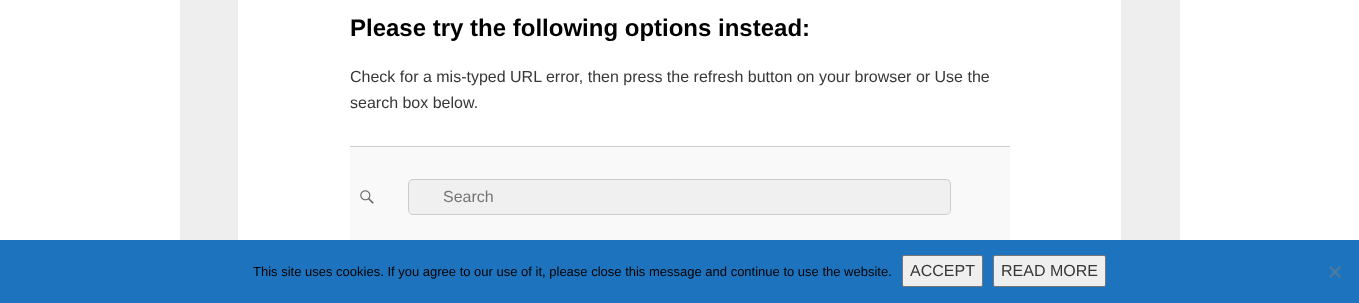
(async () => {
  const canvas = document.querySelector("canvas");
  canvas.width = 1359;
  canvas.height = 303;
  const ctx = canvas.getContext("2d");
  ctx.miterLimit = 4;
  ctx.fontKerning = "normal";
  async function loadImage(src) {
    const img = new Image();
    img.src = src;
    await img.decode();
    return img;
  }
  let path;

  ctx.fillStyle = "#ffffff";
  ctx.fillRect(0, 0, 1359, 303);
  for (const [x, y, w, h, color] of [
    [180, 0, 1000, 240, "#eeeeee"],
    [238, 0, 883, 240, "#ffffff"],
    [350, 147, 660, 93, "#f9f9f9"],
    [350, 146, 660, 1, "#cccccc"],
  ]) {
    ctx.fillStyle = color;
    ctx.fillRect(x, y, w, h);
  }
  ctx.drawImage(await loadImage("img/1.png"), 360, 190, 14, 14);
  ctx.fillStyle = "#f0f0f0";
  ctx.beginPath();
  ctx.roundRect(408.5, 179.5, 542, 35, 4.5);
  ctx.fill();
  ctx.strokeStyle = "#cccccc";
  ctx.stroke();
  ctx.fillStyle = "#1e73be";
  ctx.fillRect(0, 240, 1359, 63);
  ctx.fillStyle = "#efefef";
  ctx.beginPath();
  ctx.roundRect(902.5, 255.5, 80, 31, 1.5);
  ctx.fill();
  ctx.strokeStyle = "#767676";
  ctx.stroke();
  ctx.beginPath();
  ctx.roundRect(993.5, 255.5, 112, 31, 1.5);
  ctx.fill();
  ctx.stroke();
  ctx.fillStyle = "#4f7a9f";
  path = new Path2D("M1339.5 266L1341 267.5L1330.5 278L1329 276.5Z");
  ctx.fill(path);
  path = new Path2D("M1329 267.5L1330.5 266L1341 276.5L1339.5 278Z");
  ctx.fill(path);
  ctx.font = "bold 24px Liberation Sans";
  ctx.fillStyle = "#000000";
  ctx.fillText("Please try the following options instead:", 350, 36);
  ctx.font = "16px Liberation Sans";
  ctx.fillStyle = "#373737";
  ctx.fillText("Check for a mis-typed URL error, then press the refresh button on your browser or Use the", 350, 82);
  ctx.fillText("search box below.", 350, 108);
  ctx.fillStyle = "#757575";
  ctx.fillText("Search", 443, 202);
  ctx.font = "13px Liberation Sans";
  ctx.fillStyle = "#000000";
  ctx.fillText("This site uses cookies. If you agree to our use of it, please close this message and continue to use the website.", 253, 276);
  ctx.font = "16px Liberation Sans";
  ctx.fillStyle = "#373737";
  ctx.fillText("ACCEPT", 910, 276);
  ctx.fillText("READ MORE", 1001, 276);
})();
